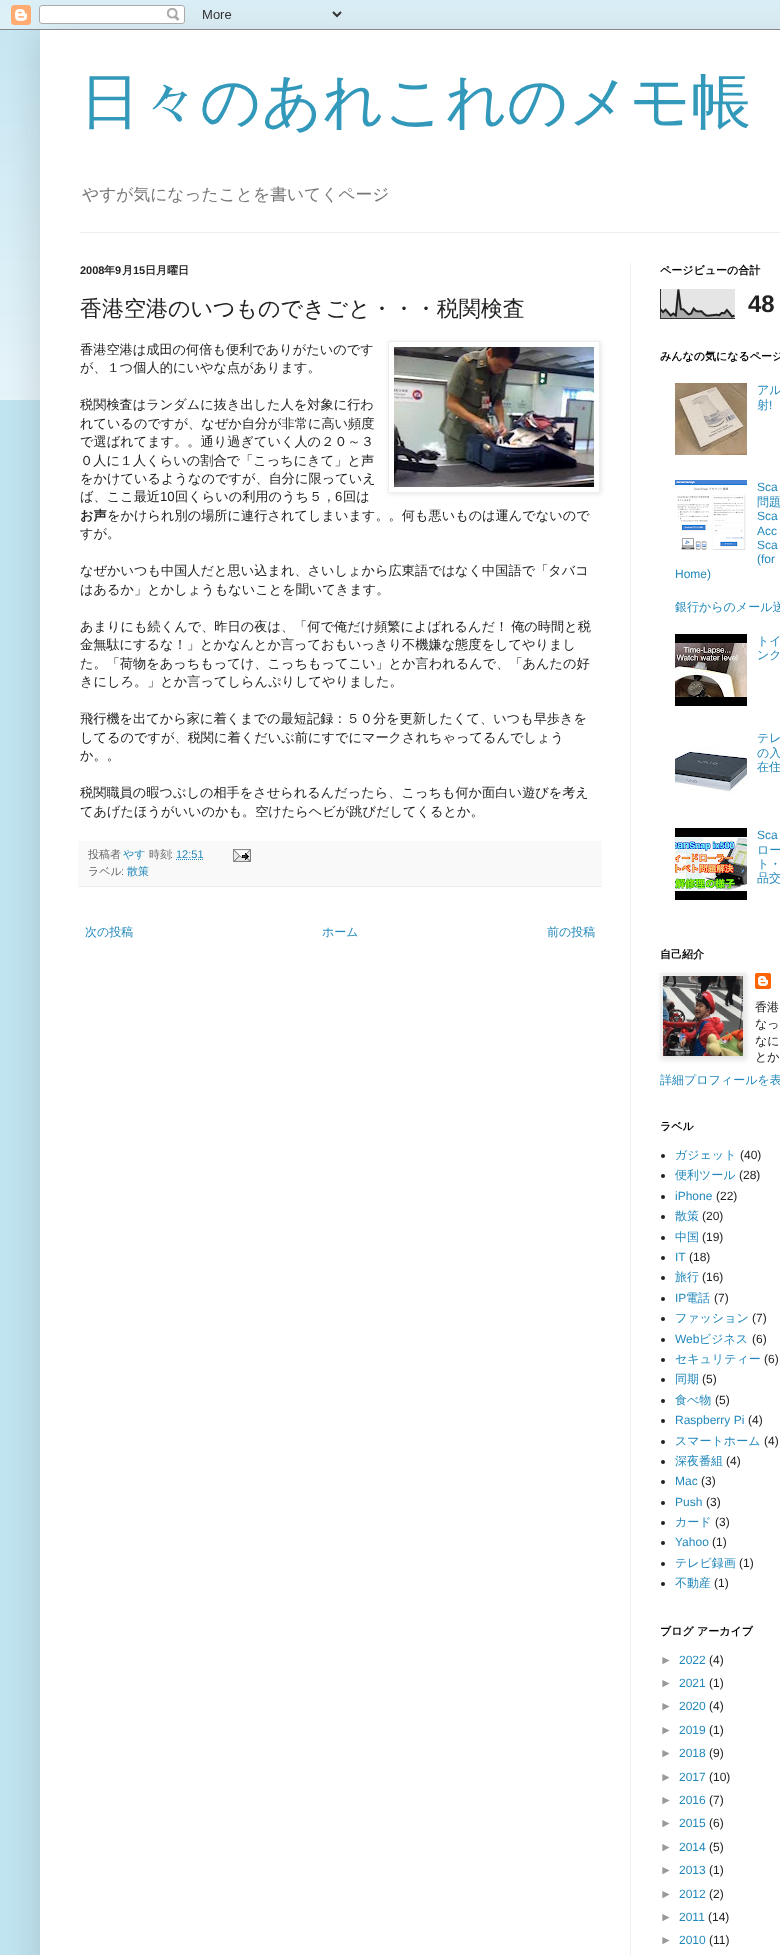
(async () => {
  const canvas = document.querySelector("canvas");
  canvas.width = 780;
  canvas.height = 1955;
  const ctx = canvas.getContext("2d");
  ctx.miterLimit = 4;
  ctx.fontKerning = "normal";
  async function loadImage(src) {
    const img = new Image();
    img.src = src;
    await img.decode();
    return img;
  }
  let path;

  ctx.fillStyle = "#c2e5f2";
  ctx.fillRect(0, 0, 780, 1955);
  ctx.drawImage(await loadImage("img/2.png"), 0, 10, 780, 390);
  ctx.fillStyle = "rgba(0, 0, 0, 0.15)";
  ctx.filter = "blur(20px)";
  ctx.beginPath();
  ctx.rect(40, 30, 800, 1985);
  ctx.fill();
  ctx.filter = "none";
  ctx.drawImage(await loadImage("img/1.png"), 0, 0, 780, 30);
  for (const [x, y, w, h, color] of [
    [40, 30, 740, 1925, "#ffffff"],
    [80, 232, 700, 1, "#eeeeee"],
    [630, 263, 1, 1692, "#eeeeee"],
  ]) {
    ctx.fillStyle = color;
    ctx.fillRect(x, y, w, h);
  }
  ctx.save();
  path = new Path2D("M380 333H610V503H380ZM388 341H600V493H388Z");
  ctx.clip(path, "evenodd");
  ctx.fillStyle = "rgba(0, 0, 0, 0.1)";
  ctx.filter = "blur(2.5px)";
  ctx.beginPath();
  ctx.rect(389, 342, 212, 152);
  ctx.fill();
  ctx.filter = "none";
  ctx.restore();
  ctx.strokeStyle = "#eeeeee";
  ctx.strokeRect(388.5, 341.5, 211, 151);
  ctx.drawImage(await loadImage("img/3.png"), 394, 347, 200, 140);
  ctx.fillStyle = "#f9f9f9";
  ctx.fillRect(78, 841, 524, 45);
  ctx.fillStyle = "#eeeeee";
  ctx.fillRect(78, 886, 524, 1);
  path = new Path2D("M176 859.5H203");
  ctx.strokeStyle = "#2288bb";
  ctx.setLineDash([1, 1]);
  ctx.stroke(path);
  ctx.drawImage(await loadImage("img/4.png"), 233, 849, 18, 13);
  ctx.drawImage(await loadImage("img/5.png"), 660, 289, 75, 30);
  ctx.drawImage(await loadImage("img/6.png"), 675, 383, 72, 72);
  ctx.drawImage(await loadImage("img/7.png"), 675, 480, 72, 70);
  ctx.drawImage(await loadImage("img/8.png"), 675, 634, 72, 72);
  ctx.drawImage(await loadImage("img/9.png"), 675, 747, 72, 48);
  ctx.drawImage(await loadImage("img/10.png"), 675, 828, 72, 72);
  ctx.drawImage(await loadImage("img/12.png"), 755, 973, 16, 16);
  ctx.fillStyle = "rgba(0, 0, 0, 0.1)";
  ctx.filter = "blur(2.5px)";
  ctx.beginPath();
  ctx.rect(661, 974, 86, 86);
  ctx.fill();
  ctx.filter = "none";
  ctx.strokeStyle = "#eeeeee";
  ctx.setLineDash([]);
  ctx.strokeRect(660.5, 973.5, 85, 85);
  ctx.drawImage(await loadImage("img/11.png"), 663, 976, 80, 80);
  ctx.fillStyle = "#222222";
  ctx.beginPath();
  ctx.arc(663, 1156, 2, 0, Math.PI * 2);
  ctx.fill();
  ctx.beginPath();
  ctx.arc(663, 1176, 2, 0, Math.PI * 2);
  ctx.fill();
  ctx.beginPath();
  ctx.arc(663, 1197, 2, 0, Math.PI * 2);
  ctx.fill();
  ctx.beginPath();
  ctx.arc(663, 1217, 2, 0, Math.PI * 2);
  ctx.fill();
  ctx.beginPath();
  ctx.arc(663, 1238, 2, 0, Math.PI * 2);
  ctx.fill();
  ctx.beginPath();
  ctx.arc(663, 1258, 2, 0, Math.PI * 2);
  ctx.fill();
  ctx.beginPath();
  ctx.arc(663, 1278, 2, 0, Math.PI * 2);
  ctx.fill();
  ctx.beginPath();
  ctx.arc(663, 1299, 2, 0, Math.PI * 2);
  ctx.fill();
  ctx.beginPath();
  ctx.arc(663, 1319, 2, 0, Math.PI * 2);
  ctx.fill();
  ctx.beginPath();
  ctx.arc(663, 1340, 2, 0, Math.PI * 2);
  ctx.fill();
  ctx.beginPath();
  ctx.arc(663, 1360, 2, 0, Math.PI * 2);
  ctx.fill();
  ctx.beginPath();
  ctx.arc(663, 1380, 2, 0, Math.PI * 2);
  ctx.fill();
  ctx.beginPath();
  ctx.arc(663, 1401, 2, 0, Math.PI * 2);
  ctx.fill();
  ctx.beginPath();
  ctx.arc(663, 1421, 2, 0, Math.PI * 2);
  ctx.fill();
  ctx.beginPath();
  ctx.arc(663, 1442, 2, 0, Math.PI * 2);
  ctx.fill();
  ctx.beginPath();
  ctx.arc(663, 1462, 2, 0, Math.PI * 2);
  ctx.fill();
  ctx.beginPath();
  ctx.arc(663, 1482, 2, 0, Math.PI * 2);
  ctx.fill();
  ctx.beginPath();
  ctx.arc(663, 1503, 2, 0, Math.PI * 2);
  ctx.fill();
  ctx.beginPath();
  ctx.arc(663, 1523, 2, 0, Math.PI * 2);
  ctx.fill();
  ctx.beginPath();
  ctx.arc(663, 1543, 2, 0, Math.PI * 2);
  ctx.fill();
  ctx.beginPath();
  ctx.arc(663, 1564, 2, 0, Math.PI * 2);
  ctx.fill();
  ctx.beginPath();
  ctx.arc(663, 1584, 2, 0, Math.PI * 2);
  ctx.fill();
  ctx.font = "500 60px WenQuanYi Zen Hei";
  ctx.fillStyle = "#3399bb";
  ctx.fillText("日々のあれこれのメモ帳", 80, 122);
  ctx.font = "500 16.75px WenQuanYi Zen Hei";
  ctx.fillStyle = "#777777";
  ctx.fillText("やすが気になったことを書いてくページ", 82, 200);
  ctx.font = "bold 11px Liberation Sans";
  ctx.fillStyle = "#222222";
  ctx.fillText("2008", 80, 274);
  ctx.font = "bold 11px WenQuanYi Zen Hei";
  ctx.fillText("年", 104, 274);
  ctx.font = "bold 11px Liberation Sans";
  ctx.fillText("9", 115, 274);
  ctx.font = "bold 11px WenQuanYi Zen Hei";
  ctx.fillText("月", 122, 274);
  ctx.font = "bold 11px Liberation Sans";
  ctx.fillText("15", 133, 274);
  ctx.font = "bold 11px WenQuanYi Zen Hei";
  ctx.fillText("日月曜日", 145, 274);
  ctx.font = "500 22px WenQuanYi Zen Hei";
  ctx.fillText("香港空港のいつものできごと・・・税関検査", 80, 316);
  ctx.font = "500 13.2px WenQuanYi Zen Hei";
  for (const [text, x, y] of [
    ["香港空港は成田の何倍も便利でありがたいのです", 80, 354],
    ["が、１つ個人的にいやな点があります。", 80, 372],
    ["税関検査はランダムに抜き出した人を対象に行わ", 80, 409],
    ["れているのですが、なぜか自分が非常に高い頻度", 80, 428],
    ["で選ばれてます。。通り過ぎていく人の２０～３", 80, 446],
    ["０人に１人くらいの割合で「こっちにきて」と声", 80, 465],
    ["をかけているようなのですが、自分に限っていえ", 80, 483],
    ["ば、ここ最近", 80, 501],
  ]) {
    ctx.fillText(text, x, y);
  }
  ctx.font = "13.2px Liberation Sans";
  ctx.fillText("10", 160, 501);
  ctx.font = "500 13.2px WenQuanYi Zen Hei";
  ctx.fillText("回くらいの利用のうち５，", 175, 501);
  ctx.font = "13.2px Liberation Sans";
  ctx.fillText("6", 335, 501);
  ctx.font = "500 13.2px WenQuanYi Zen Hei";
  ctx.fillText("回は", 343, 501);
  ctx.font = "bold 13.2px WenQuanYi Zen Hei";
  ctx.fillText("お声", 80, 520);
  ctx.font = "500 13.2px WenQuanYi Zen Hei";
  for (const [text, x, y] of [
    ["をかけられ別の場所に連行されてしまいます。。何も悪いものは運んでないので", 107, 520],
    ["すが。", 80, 538],
    ["なぜかいつも中国人だと思い込まれ、さいしょから広東語ではなく中国語で「タバコ", 80, 575],
    ["はあるか」とかしょうもないことを聞いてきます。", 80, 594],
  ]) {
    ctx.fillText(text, x, y);
  }
  ctx.wordSpacing = "-1px";
  ctx.fillText("あまりにも続くんで、昨日の夜は、「何で俺だけ頻繁によばれるんだ！ 俺の時間と税", 80, 631);
  ctx.wordSpacing = "0px";
  for (const [text, x, y] of [
    ["金無駄にするな！」とかなんとか言っておもいっきり不機嫌な態度をしてやりまし", 80, 649],
    ["た。「荷物をあっちもってけ、こっちもってこい」とか言われるんで、「あんたの好", 80, 668],
    ["きにしろ。」とか言ってしらんぷりしてやりました。", 80, 686],
    ["飛行機を出てから家に着くまでの最短記録：５０分を更新したくて、いつも早歩きを", 80, 723],
    ["してるのですが、税関に着くだいぶ前にすでにマークされちゃってるんでしょう", 80, 742],
    ["か。。", 80, 760],
    ["税関職員の暇つぶしの相手をさせられるんだったら、こっちも何か面白い遊びを考え", 80, 797],
    ["てあげたほうがいいのかも。空けたらヘビが跳びだしてくるとか。", 80, 816],
  ]) {
    ctx.fillText(text, x, y);
  }
  ctx.font = "500 11px WenQuanYi Zen Hei";
  ctx.fillStyle = "#666666";
  ctx.fillText("投稿者", 88, 858);
  ctx.fillStyle = "#2288bb";
  ctx.fillText("やす", 123, 858);
  ctx.fillStyle = "#666666";
  ctx.fillText("時刻", 149, 858);
  ctx.font = "11px Liberation Sans";
  ctx.fillText(":", 170, 858);
  ctx.fillStyle = "#2288bb";
  ctx.fillText("12:51", 176, 858);
  ctx.font = "500 11px WenQuanYi Zen Hei";
  ctx.fillStyle = "#666666";
  ctx.fillText("ラベル", 88, 875);
  ctx.font = "11px Liberation Sans";
  ctx.fillText(":", 121, 875);
  ctx.font = "500 11px WenQuanYi Zen Hei";
  ctx.fillStyle = "#2288bb";
  ctx.fillText("散策", 127, 875);
  ctx.font = "500 12px WenQuanYi Zen Hei";
  for (const [text, x, y] of [
    ["次の投稿", 85, 936],
    ["ホーム", 322, 936],
    ["前の投稿", 547, 936],
  ]) {
    ctx.fillText(text, x, y);
  }
  ctx.font = "bold 11px WenQuanYi Zen Hei";
  ctx.fillStyle = "#000000";
  ctx.fillText("ページビューの合計", 660, 274);
  ctx.font = "bold 24px Liberation Sans";
  ctx.fillStyle = "#222222";
  ctx.fillText("48", 748, 312);
  ctx.font = "bold 11px WenQuanYi Zen Hei";
  ctx.fillStyle = "#000000";
  ctx.fillText("みんなの気になるページ", 660, 360);
  ctx.font = "500 12px WenQuanYi Zen Hei";
  ctx.fillStyle = "#2288bb";
  ctx.fillText("アル", 757, 394);
  ctx.fillText("射", 757, 409);
  ctx.font = "12px Liberation Sans";
  ctx.fillText("!", 769, 409);
  ctx.fillText("Sca", 757, 491);
  ctx.font = "500 12px WenQuanYi Zen Hei";
  ctx.fillText("問題", 757, 506);
  ctx.font = "12px Liberation Sans";
  for (const [text, x, y] of [
    ["Sca", 757, 520],
    ["Acc", 757, 535],
    ["Sca", 757, 549],
    ["(for", 757, 563],
    ["Home)", 675, 578],
  ]) {
    ctx.fillText(text, x, y);
  }
  ctx.font = "500 12px WenQuanYi Zen Hei";
  for (const [text, x, y] of [
    ["銀行からのメール送", 675, 611],
    ["トイ", 757, 645],
    ["ンク", 757, 659],
    ["テレ", 757, 742],
    ["の入", 757, 757],
    ["在住", 757, 771],
  ]) {
    ctx.fillText(text, x, y);
  }
  ctx.font = "12px Liberation Sans";
  ctx.fillText("Sca", 757, 839);
  ctx.font = "500 12px WenQuanYi Zen Hei";
  for (const [text, x, y] of [
    ["ロー", 757, 854],
    ["ト・", 757, 868],
    ["品交", 757, 882],
  ]) {
    ctx.fillText(text, x, y);
  }
  ctx.font = "bold 11px WenQuanYi Zen Hei";
  ctx.fillStyle = "#000000";
  ctx.fillText("自己紹介", 660, 958);
  ctx.font = "500 12px WenQuanYi Zen Hei";
  ctx.fillStyle = "#222222";
  for (const [text, x, y] of [
    ["香港", 755, 1011],
    ["なっ", 755, 1028],
    ["なに", 755, 1045],
    ["とか", 755, 1061],
  ]) {
    ctx.fillText(text, x, y);
  }
  ctx.fillStyle = "#2288bb";
  ctx.fillText("詳細プロフィールを表", 660, 1084);
  ctx.font = "bold 11px WenQuanYi Zen Hei";
  ctx.fillStyle = "#000000";
  ctx.fillText("ラベル", 660, 1130);
  ctx.font = "500 12px WenQuanYi Zen Hei";
  ctx.fillStyle = "#2288bb";
  ctx.fillText("ガジェット", 675, 1159);
  ctx.font = "12px Liberation Sans";
  ctx.fillStyle = "#222222";
  ctx.fillText("(40)", 740, 1159);
  ctx.font = "500 12px WenQuanYi Zen Hei";
  ctx.fillStyle = "#2288bb";
  ctx.fillText("便利ツール", 675, 1179);
  ctx.font = "12px Liberation Sans";
  ctx.fillStyle = "#222222";
  ctx.fillText("(28)", 739, 1179);
  ctx.fillStyle = "#2288bb";
  ctx.fillText("iPhone", 675, 1200);
  ctx.fillStyle = "#222222";
  ctx.fillText("(22)", 716, 1200);
  ctx.font = "500 12px WenQuanYi Zen Hei";
  ctx.fillStyle = "#2288bb";
  ctx.fillText("散策", 675, 1220);
  ctx.font = "12px Liberation Sans";
  ctx.fillStyle = "#222222";
  ctx.fillText("(20)", 702, 1220);
  ctx.font = "500 12px WenQuanYi Zen Hei";
  ctx.fillStyle = "#2288bb";
  ctx.fillText("中国", 675, 1241);
  ctx.font = "12px Liberation Sans";
  ctx.fillStyle = "#222222";
  ctx.fillText("(19)", 702, 1241);
  ctx.fillStyle = "#2288bb";
  ctx.fillText("IT", 675, 1261);
  ctx.fillStyle = "#222222";
  ctx.fillText("(18)", 689, 1261);
  ctx.font = "500 12px WenQuanYi Zen Hei";
  ctx.fillStyle = "#2288bb";
  ctx.fillText("旅行", 675, 1281);
  ctx.font = "12px Liberation Sans";
  ctx.fillStyle = "#222222";
  ctx.fillText("(16)", 702, 1281);
  ctx.fillStyle = "#2288bb";
  ctx.fillText("IP", 675, 1302);
  ctx.font = "500 12px WenQuanYi Zen Hei";
  ctx.fillText("電話", 686, 1302);
  ctx.font = "12px Liberation Sans";
  ctx.fillStyle = "#222222";
  ctx.fillText("(7)", 714, 1302);
  ctx.font = "500 12px WenQuanYi Zen Hei";
  ctx.fillStyle = "#2288bb";
  ctx.fillText("ファッション", 675, 1322);
  ctx.font = "12px Liberation Sans";
  ctx.fillStyle = "#222222";
  ctx.fillText("(7)", 752, 1322);
  ctx.fillStyle = "#2288bb";
  ctx.fillText("Web", 675, 1343);
  ctx.font = "500 12px WenQuanYi Zen Hei";
  ctx.fillText("ビジネス", 699, 1343);
  ctx.font = "12px Liberation Sans";
  ctx.fillStyle = "#222222";
  ctx.fillText("(6)", 752, 1343);
  ctx.font = "500 12px WenQuanYi Zen Hei";
  ctx.fillStyle = "#2288bb";
  ctx.fillText("セキュリティー", 675, 1363);
  ctx.font = "12px Liberation Sans";
  ctx.fillStyle = "#222222";
  ctx.fillText("(6)", 764, 1363);
  ctx.font = "500 12px WenQuanYi Zen Hei";
  ctx.fillStyle = "#2288bb";
  ctx.fillText("同期", 675, 1383);
  ctx.font = "12px Liberation Sans";
  ctx.fillStyle = "#222222";
  ctx.fillText("(5)", 702, 1383);
  ctx.font = "500 12px WenQuanYi Zen Hei";
  ctx.fillStyle = "#2288bb";
  ctx.fillText("食べ物", 675, 1404);
  ctx.font = "12px Liberation Sans";
  ctx.fillStyle = "#222222";
  ctx.fillText("(5)", 715, 1404);
  ctx.fillStyle = "#2288bb";
  ctx.fillText("Raspberry Pi", 675, 1424);
  ctx.fillStyle = "#222222";
  ctx.fillText("(4)", 748, 1424);
  ctx.font = "500 12px WenQuanYi Zen Hei";
  ctx.fillStyle = "#2288bb";
  ctx.fillText("スマートホーム", 675, 1445);
  ctx.font = "12px Liberation Sans";
  ctx.fillStyle = "#222222";
  ctx.fillText("(4)", 764, 1445);
  ctx.font = "500 12px WenQuanYi Zen Hei";
  ctx.fillStyle = "#2288bb";
  ctx.fillText("深夜番組", 675, 1465);
  ctx.font = "12px Liberation Sans";
  ctx.fillStyle = "#222222";
  ctx.fillText("(4)", 726, 1465);
  ctx.fillStyle = "#2288bb";
  ctx.fillText("Mac", 675, 1485);
  ctx.fillStyle = "#222222";
  ctx.fillText("(3)", 701, 1485);
  ctx.fillStyle = "#2288bb";
  ctx.fillText("Push", 675, 1506);
  ctx.fillStyle = "#222222";
  ctx.fillText("(3)", 706, 1506);
  ctx.font = "500 12px WenQuanYi Zen Hei";
  ctx.fillStyle = "#2288bb";
  ctx.fillText("カード", 675, 1526);
  ctx.font = "12px Liberation Sans";
  ctx.fillStyle = "#222222";
  ctx.fillText("(3)", 715, 1526);
  ctx.fillStyle = "#2288bb";
  ctx.fillText("Yahoo", 675, 1546);
  ctx.fillStyle = "#222222";
  ctx.fillText("(1)", 712, 1546);
  ctx.font = "500 12px WenQuanYi Zen Hei";
  ctx.fillStyle = "#2288bb";
  ctx.fillText("テレビ録画", 675, 1567);
  ctx.font = "12px Liberation Sans";
  ctx.fillStyle = "#222222";
  ctx.fillText("(1)", 739, 1567);
  ctx.font = "500 12px WenQuanYi Zen Hei";
  ctx.fillStyle = "#2288bb";
  ctx.fillText("不動産", 675, 1587);
  ctx.font = "12px Liberation Sans";
  ctx.fillStyle = "#222222";
  ctx.fillText("(1)", 714, 1587);
  ctx.font = "bold 11px WenQuanYi Zen Hei";
  ctx.fillStyle = "#000000";
  ctx.fillText("ブログ アーカイブ", 660, 1635);
  ctx.font = "12px Liberation Sans";
  ctx.fillStyle = "#999999";
  ctx.fillText("►", 660, 1664);
  ctx.fillStyle = "#2288bb";
  ctx.fillText("2022", 679, 1664);
  ctx.fillStyle = "#222222";
  ctx.fillText("(4)", 709, 1664);
  ctx.fillStyle = "#999999";
  ctx.fillText("►", 660, 1687);
  ctx.fillStyle = "#2288bb";
  ctx.fillText("2021", 679, 1687);
  ctx.fillStyle = "#222222";
  ctx.fillText("(1)", 709, 1687);
  ctx.fillStyle = "#999999";
  ctx.fillText("►", 660, 1710);
  ctx.fillStyle = "#2288bb";
  ctx.fillText("2020", 679, 1710);
  ctx.fillStyle = "#222222";
  ctx.fillText("(4)", 709, 1710);
  ctx.fillStyle = "#999999";
  ctx.fillText("►", 660, 1734);
  ctx.fillStyle = "#2288bb";
  ctx.fillText("2019", 679, 1734);
  ctx.fillStyle = "#222222";
  ctx.fillText("(1)", 709, 1734);
  ctx.fillStyle = "#999999";
  ctx.fillText("►", 660, 1757);
  ctx.fillStyle = "#2288bb";
  ctx.fillText("2018", 679, 1757);
  ctx.fillStyle = "#222222";
  ctx.fillText("(9)", 709, 1757);
  ctx.fillStyle = "#999999";
  ctx.fillText("►", 660, 1781);
  ctx.fillStyle = "#2288bb";
  ctx.fillText("2017", 679, 1781);
  ctx.fillStyle = "#222222";
  ctx.fillText("(10)", 709, 1781);
  ctx.fillStyle = "#999999";
  ctx.fillText("►", 660, 1804);
  ctx.fillStyle = "#2288bb";
  ctx.fillText("2016", 679, 1804);
  ctx.fillStyle = "#222222";
  ctx.fillText("(7)", 709, 1804);
  ctx.fillStyle = "#999999";
  ctx.fillText("►", 660, 1827);
  ctx.fillStyle = "#2288bb";
  ctx.fillText("2015", 679, 1827);
  ctx.fillStyle = "#222222";
  ctx.fillText("(6)", 709, 1827);
  ctx.fillStyle = "#999999";
  ctx.fillText("►", 660, 1851);
  ctx.fillStyle = "#2288bb";
  ctx.fillText("2014", 679, 1851);
  ctx.fillStyle = "#222222";
  ctx.fillText("(5)", 709, 1851);
  ctx.fillStyle = "#999999";
  ctx.fillText("►", 660, 1874);
  ctx.fillStyle = "#2288bb";
  ctx.fillText("2013", 679, 1874);
  ctx.fillStyle = "#222222";
  ctx.fillText("(1)", 709, 1874);
  ctx.fillStyle = "#999999";
  ctx.fillText("►", 660, 1898);
  ctx.fillStyle = "#2288bb";
  ctx.fillText("2012", 679, 1898);
  ctx.fillStyle = "#222222";
  ctx.fillText("(2)", 709, 1898);
  ctx.fillStyle = "#999999";
  ctx.fillText("►", 660, 1921);
  ctx.fillStyle = "#2288bb";
  ctx.fillText("2011", 679, 1921);
  ctx.fillStyle = "#222222";
  ctx.fillText("(14)", 708, 1921);
  ctx.fillStyle = "#999999";
  ctx.fillText("►", 660, 1944);
  ctx.fillStyle = "#2288bb";
  ctx.fillText("2010", 679, 1944);
  ctx.fillStyle = "#222222";
  ctx.fillText("(11)", 709, 1944);
})();
